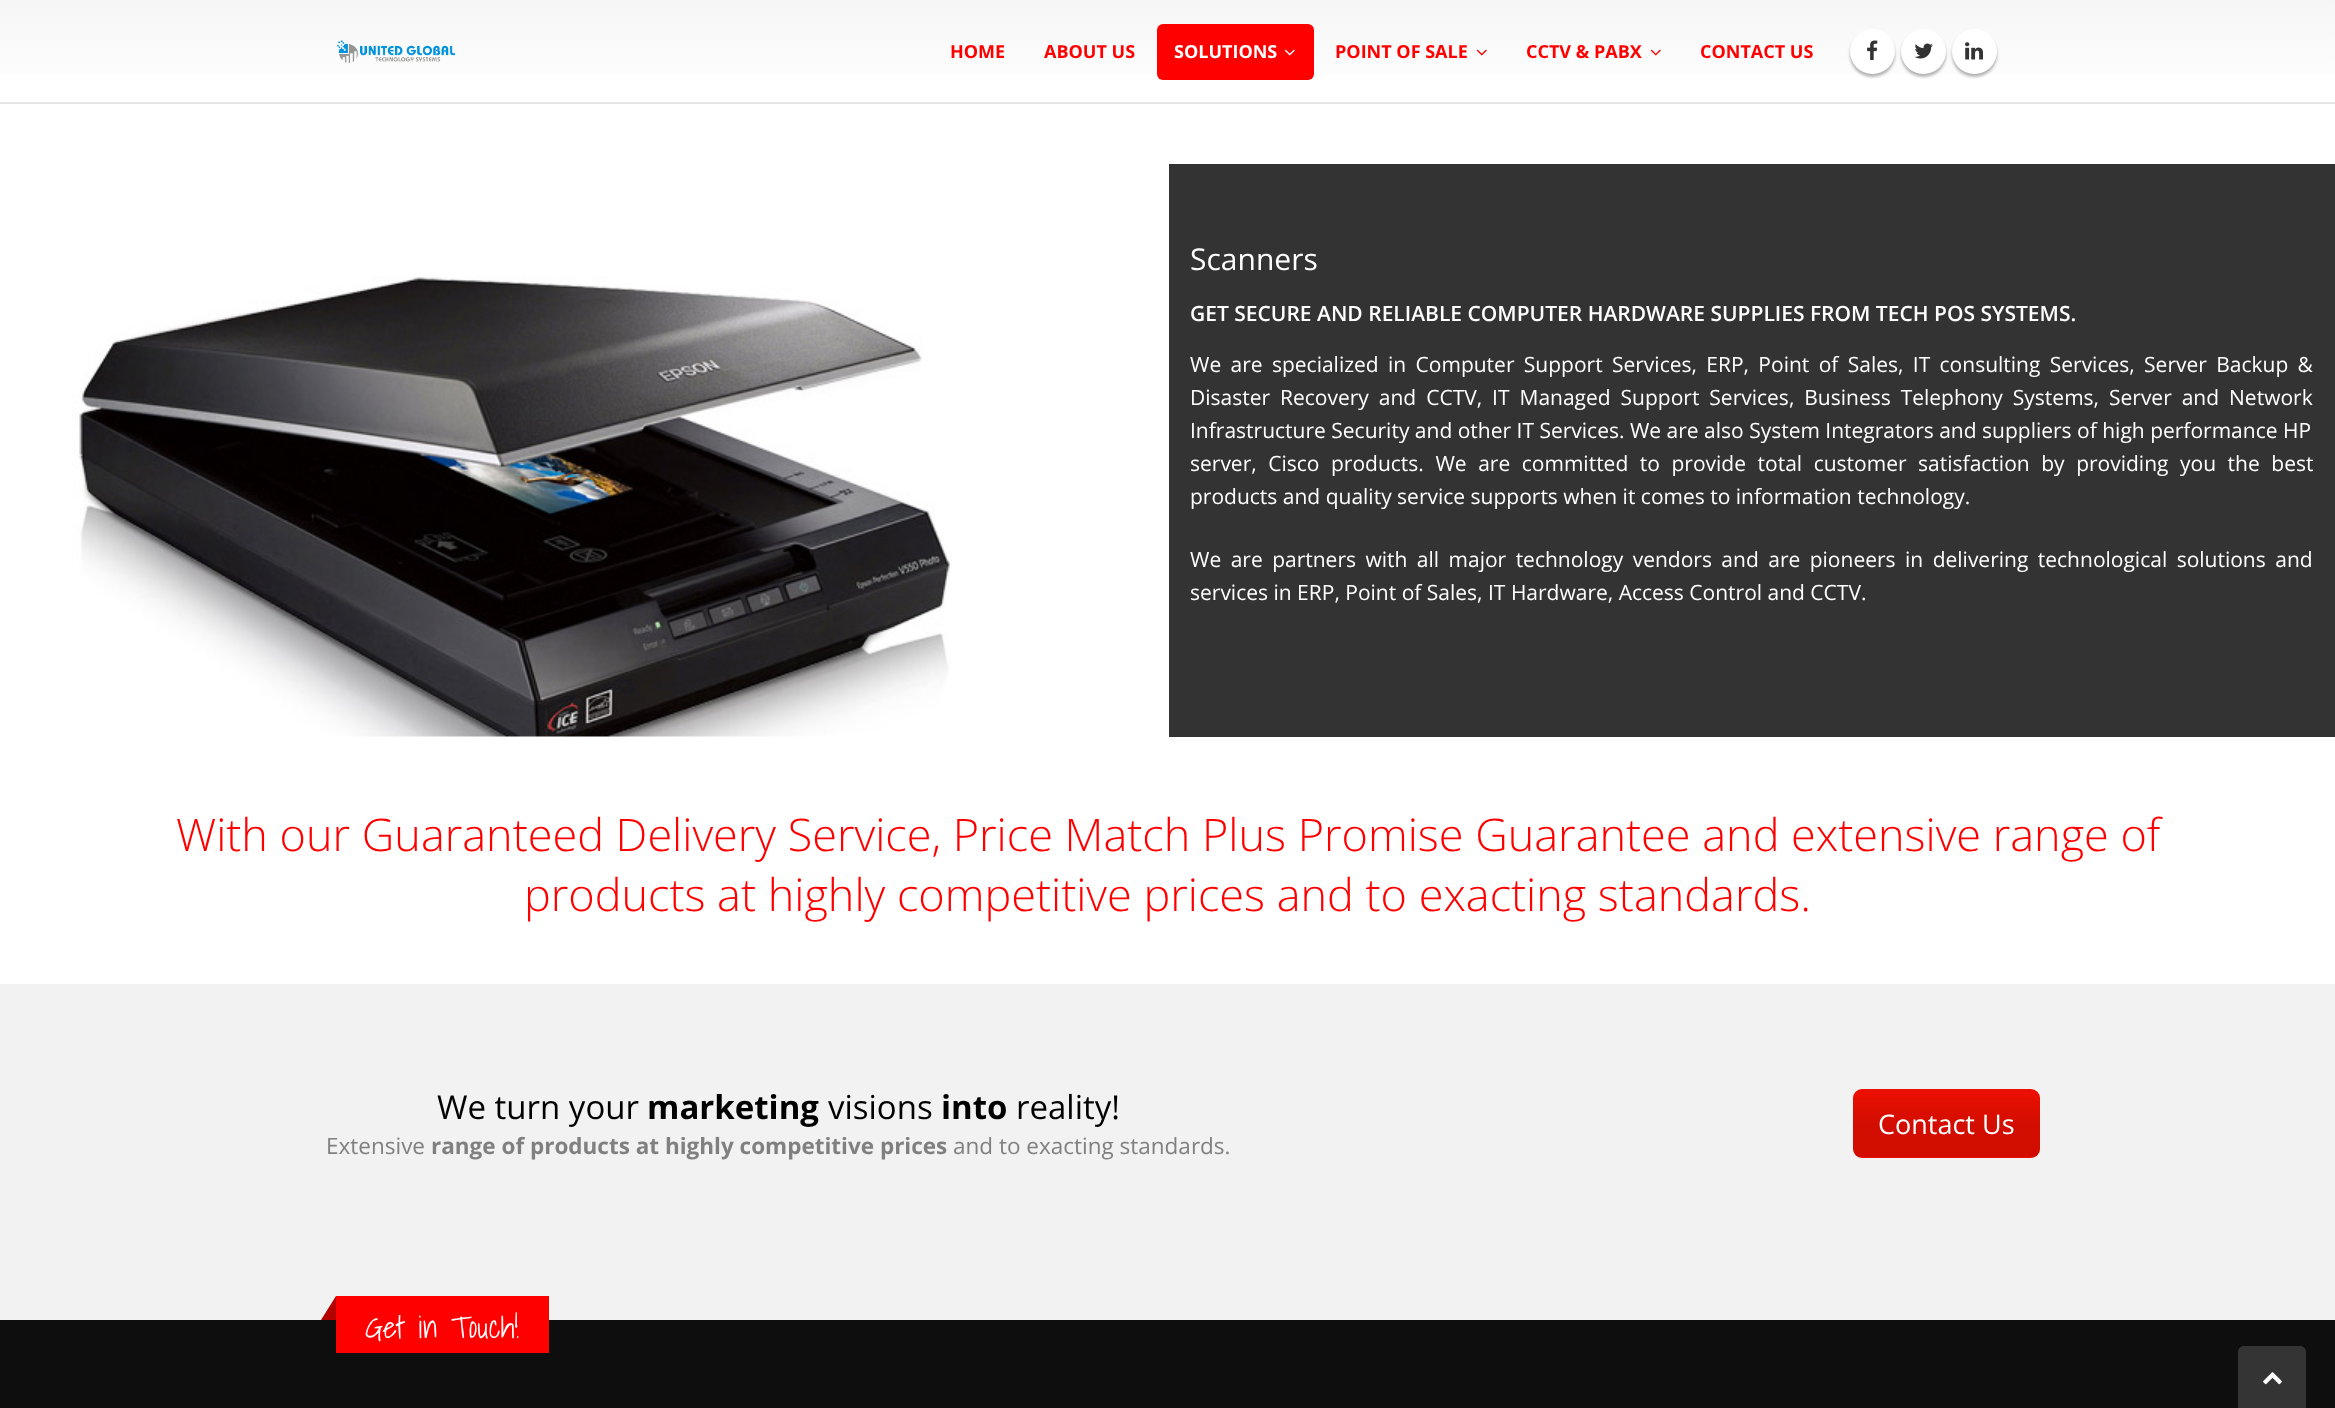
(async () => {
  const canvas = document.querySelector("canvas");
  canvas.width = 2335;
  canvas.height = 1408;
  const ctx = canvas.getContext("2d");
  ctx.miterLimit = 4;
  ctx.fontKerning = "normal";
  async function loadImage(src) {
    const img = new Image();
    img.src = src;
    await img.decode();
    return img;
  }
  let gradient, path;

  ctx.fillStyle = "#ffffff";
  ctx.fillRect(0, 0, 2335, 1408);
  ctx.fillStyle = "#e6e6e6";
  path = new Path2D("M0 102V104H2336V2V102Z");
  ctx.fill(path);
  gradient = ctx.createLinearGradient(1168, 0, 1168, 102);
  gradient.addColorStop(0, "#f6f6f6");
  gradient.addColorStop(1, "#ffffff");
  ctx.fillStyle = gradient;
  ctx.fillRect(0, 0, 2335, 74);
  ctx.drawImage(await loadImage("img/1.png"), 336, 40, 120, 24);
  ctx.fillStyle = "#ff0000";
  ctx.beginPath();
  ctx.roundRect(1157, 24, 157, 56, 6);
  ctx.fill();
  ctx.drawImage(await loadImage("img/2.png"), 1284, 49, 11, 7);
  ctx.drawImage(await loadImage("img/3.png"), 1476, 49, 11, 7);
  ctx.drawImage(await loadImage("img/3.png"), 1650, 49, 11, 7);
  ctx.fillStyle = "rgba(0, 0, 0, 0.3)";
  ctx.filter = "blur(1.5px)";
  ctx.beginPath();
  ctx.roundRect(1850, 32, 45, 45, 22.5);
  ctx.fill();
  ctx.filter = "none";
  ctx.fillStyle = "#ffffff";
  ctx.beginPath();
  ctx.arc(1872.5, 51.5, 22.5, 0, Math.PI * 2);
  ctx.fill();
  ctx.drawImage(await loadImage("img/4.png"), 1867, 40, 11, 20);
  ctx.fillStyle = "rgba(0, 0, 0, 0.3)";
  ctx.filter = "blur(1.5px)";
  ctx.beginPath();
  ctx.roundRect(1901, 32, 45, 45, 22.5);
  ctx.fill();
  ctx.filter = "none";
  ctx.fillStyle = "#ffffff";
  ctx.beginPath();
  ctx.arc(1923.5, 51.5, 22.5, 0, Math.PI * 2);
  ctx.fill();
  ctx.drawImage(await loadImage("img/5.png"), 1914, 43, 19, 16);
  ctx.fillStyle = "rgba(0, 0, 0, 0.3)";
  ctx.filter = "blur(1.5px)";
  ctx.beginPath();
  ctx.roundRect(1952, 32, 45, 45, 22.5);
  ctx.fill();
  ctx.filter = "none";
  ctx.fillStyle = "#ffffff";
  ctx.beginPath();
  ctx.arc(1974.5, 51.5, 22.5, 0, Math.PI * 2);
  ctx.fill();
  ctx.drawImage(await loadImage("img/6.png"), 1965, 42, 18, 18);
  ctx.drawImage(await loadImage("img/7.png"), 72, 276, 880, 461);
  ctx.fillStyle = "#333333";
  ctx.fillRect(1169, 164, 1166, 573);
  ctx.fillStyle = "#f2f2f2";
  ctx.fillRect(0, 984, 2335, 336);
  ctx.fillStyle = "#ea0f00";
  ctx.beginPath();
  ctx.roundRect(1853, 1089, 187, 69, 9);
  ctx.fill();
  ctx.save();
  ctx.beginPath();
  ctx.roundRect(1853, 1089, 187, 69, 9);
  ctx.clip();
  gradient = ctx.createLinearGradient(2039, 1091, 2039, 1157);
  gradient.addColorStop(0, "rgba(0, 0, 0, 0)");
  gradient.addColorStop(0.5, "rgba(0, 0, 0, 0.1)");
  gradient.addColorStop(1, "rgba(0, 0, 0, 0.1)");
  ctx.fillStyle = gradient;
  ctx.fillRect(1853, 1098, 187, 59);
  ctx.restore();
  ctx.fillStyle = "#0e0e0e";
  ctx.fillRect(0, 1320, 2335, 88);
  ctx.fillStyle = "#ff0000";
  ctx.fillRect(336, 1296, 213, 57);
  ctx.fillStyle = "#b30000";
  path = new Path2D("M336 1296V1320H321Z");
  ctx.fill(path);
  ctx.fillStyle = "#343434";
  path = new Path2D("M2244 1346H2300C2303.5 1346 2306 1348.5 2306 1352V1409H2238V1352C2238 1348.5 2240.5 1346 2244 1346Z");
  ctx.fill(path);
  ctx.drawImage(await loadImage("img/8.png"), 2263, 1372, 19, 13);
  ctx.font = "bold 18px Open Sans";
  ctx.fillStyle = "#ff0000";
  ctx.fillText("HOME", 950, 58);
  ctx.fillText("ABOUT US", 1044, 58);
  ctx.fillStyle = "#ffffff";
  ctx.fillText("SOLUTIONS", 1174, 58);
  ctx.fillStyle = "#ff0000";
  for (const [text, x, y] of [
    ["POINT OF SALE", 1335, 58],
    ["CCTV & PABX", 1526, 58],
    ["CONTACT US", 1700, 58],
  ]) {
    ctx.fillText(text, x, y);
  }
  ctx.font = "30px Open Sans";
  ctx.fillStyle = "#ffffff";
  ctx.fillText("Scanners", 1190, 270);
  ctx.font = "600 21px Open Sans";
  ctx.fillText("GET SECURE AND RELIABLE COMPUTER HARDWARE SUPPLIES FROM TECH POS SYSTEMS.", 1190, 321);
  ctx.wordSpacing = "3.9px";
  ctx.font = "21px Open Sans";
  ctx.fillText("We are specialized in Computer Support Services, ERP, Point of Sales, IT consulting Services, Server Backup &", 1190, 372);
  ctx.wordSpacing = "4.5px";
  ctx.fillText("Disaster Recovery and CCTV, IT Managed Support Services, Business Telephony Systems, Server and Network", 1190, 405);
  ctx.wordSpacing = "0px";
  ctx.fillText("Infrastructure Security and other IT Services. We are also System Integrators and suppliers of high performance HP", 1190, 438);
  ctx.wordSpacing = "6.1px";
  ctx.fillText("server, Cisco products. We are committed to provide total customer satisfaction by providing you the best", 1190, 471);
  ctx.wordSpacing = "0px";
  ctx.fillText("products and quality service supports when it comes to information technology.", 1190, 504);
  ctx.wordSpacing = "4px";
  ctx.fillText("We are partners with all major technology vendors and are pioneers in delivering technological solutions and", 1190, 567);
  ctx.wordSpacing = "0px";
  ctx.fillText("services in ERP, Point of Sales, IT Hardware, Access Control and CCTV.", 1190, 600);
  ctx.font = "300 45px Open Sans";
  ctx.fillStyle = "#ff0000";
  ctx.fillText("With our Guaranteed Delivery Service, Price Match Plus Promise Guarantee and extensive range of", 176, 851);
  ctx.fillText("products at highly competitive prices and to exacting standards.", 524, 911);
  ctx.font = "33px Open Sans";
  ctx.fillStyle = "#000000";
  ctx.fillText("We turn your", 437, 1119);
  ctx.font = "bold 33px Open Sans";
  ctx.fillText("marketing", 647, 1119);
  ctx.font = "33px Open Sans";
  ctx.fillText("visions", 828, 1119);
  ctx.font = "bold 33px Open Sans";
  ctx.fillText("into", 941, 1119);
  ctx.font = "33px Open Sans";
  ctx.fillText("reality!", 1016, 1119);
  ctx.font = "22.5px Open Sans";
  ctx.fillStyle = "#808080";
  ctx.fillText("Extensive", 326, 1154);
  ctx.font = "bold 22.5px Open Sans";
  ctx.fillText("range of products at highly competitive prices", 431, 1154);
  ctx.font = "22.5px Open Sans";
  ctx.fillText("and to exacting standards.", 953, 1154);
  ctx.font = "27px Open Sans";
  ctx.fillStyle = "#ffffff";
  ctx.fillText("Contact Us", 1878, 1134);
  ctx.font = "300 30.25px Shadows Into Light";
  ctx.fillText("Get in Touch!", 365, 1338);
})();
